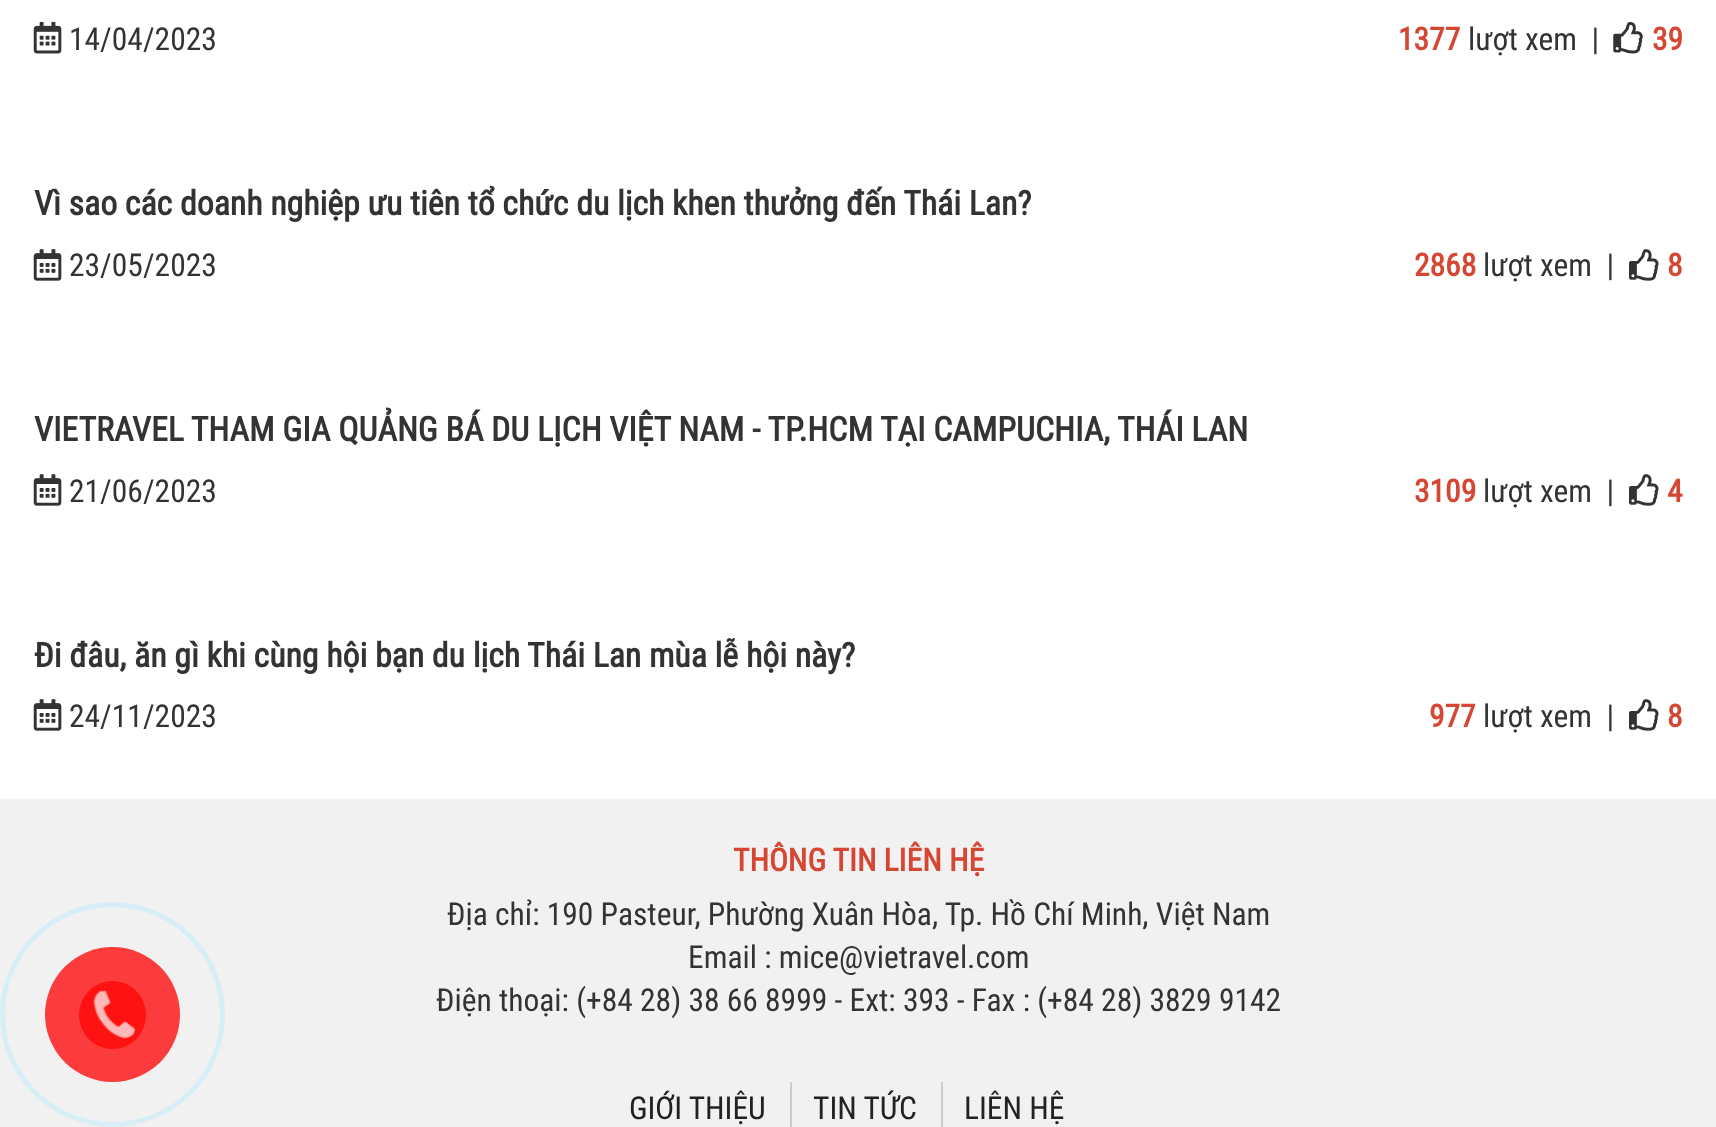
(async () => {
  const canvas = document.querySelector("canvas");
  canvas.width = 1716;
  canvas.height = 1127;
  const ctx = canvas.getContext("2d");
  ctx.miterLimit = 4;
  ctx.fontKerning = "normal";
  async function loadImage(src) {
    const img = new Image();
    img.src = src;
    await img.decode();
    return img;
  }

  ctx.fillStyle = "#ffffff";
  ctx.fillRect(0, 0, 1716, 1127);
  ctx.drawImage(await loadImage("img/1.png"), 33, 21, 29, 33);
  ctx.drawImage(await loadImage("img/2.png"), 1613, 21, 30, 33);
  ctx.drawImage(await loadImage("img/3.png"), 33, 249, 29, 32);
  ctx.drawImage(await loadImage("img/4.png"), 1629, 249, 30, 32);
  ctx.drawImage(await loadImage("img/3.png"), 33, 474, 29, 32);
  ctx.drawImage(await loadImage("img/4.png"), 1629, 474, 30, 32);
  ctx.drawImage(await loadImage("img/3.png"), 33, 699, 29, 32);
  ctx.drawImage(await loadImage("img/4.png"), 1629, 699, 30, 32);
  ctx.fillStyle = "#f1f1f1";
  ctx.fillRect(0, 799, 1716, 328);
  ctx.beginPath();
  ctx.arc(112.5, 1014.5, 110, 0, Math.PI * 2);
  ctx.strokeStyle = "#d8eef7";
  ctx.lineWidth = 5;
  ctx.stroke();
  ctx.fillStyle = "#fc3c3c";
  ctx.beginPath();
  ctx.arc(112.5, 1014.5, 67.5, 0, Math.PI * 2);
  ctx.fill();
  ctx.fillStyle = "#fe1212";
  ctx.beginPath();
  ctx.roundRect(79, 981, 67, 68, 33.5);
  ctx.fill();
  ctx.drawImage(await loadImage("img/5.png"), 93, 990, 43, 49);
  ctx.fillStyle = "#cccccc";
  ctx.fillRect(790, 1082, 2, 45);
  ctx.fillRect(941, 1082, 2, 45);
  ctx.font = "31.5px Roboto Condensed";
  ctx.fillStyle = "#333333";
  ctx.fillText("14/04/2023", 69, 50);
  ctx.font = "bold 31.5px Roboto Condensed";
  ctx.fillStyle = "#d54733";
  ctx.fillText("1377", 1398, 50);
  ctx.font = "31.5px Roboto Condensed";
  ctx.fillStyle = "#333333";
  ctx.fillText("lượt xem  |", 1468, 50);
  ctx.font = "bold 31.5px Roboto Condensed";
  ctx.fillStyle = "#d54733";
  ctx.fillText("39", 1652, 50);
  ctx.font = "bold 33.75px Roboto Condensed";
  ctx.fillStyle = "#333333";
  ctx.fillText("Vì sao các doanh nghiệp ưu tiên tổ chức du lịch khen thưởng đến Thái Lan?", 34, 215);
  ctx.font = "31.5px Roboto Condensed";
  ctx.fillText("23/05/2023", 69, 276);
  ctx.font = "bold 31.5px Roboto Condensed";
  ctx.fillStyle = "#d54733";
  ctx.fillText("2868", 1414, 276);
  ctx.font = "31.5px Roboto Condensed";
  ctx.fillStyle = "#333333";
  ctx.fillText("lượt xem  |", 1483, 276);
  ctx.font = "bold 31.5px Roboto Condensed";
  ctx.fillStyle = "#d54733";
  ctx.fillText("8", 1667, 276);
  ctx.font = "bold 33.75px Roboto Condensed";
  ctx.fillStyle = "#333333";
  ctx.fillText("VIETRAVEL THAM GIA QUẢNG BÁ DU LỊCH VIỆT NAM - TP.HCM TẠI CAMPUCHIA, THÁI LAN", 34, 441);
  ctx.font = "31.5px Roboto Condensed";
  ctx.fillText("21/06/2023", 69, 502);
  ctx.font = "bold 31.5px Roboto Condensed";
  ctx.fillStyle = "#d54733";
  ctx.fillText("3109", 1414, 502);
  ctx.font = "31.5px Roboto Condensed";
  ctx.fillStyle = "#333333";
  ctx.fillText("lượt xem  |", 1483, 502);
  ctx.font = "bold 31.5px Roboto Condensed";
  ctx.fillStyle = "#d54733";
  ctx.fillText("4", 1667, 502);
  ctx.font = "bold 33.75px Roboto Condensed";
  ctx.fillStyle = "#333333";
  ctx.fillText("Đi đâu, ăn gì khi cùng hội bạn du lịch Thái Lan mùa lễ hội này?", 34, 667);
  ctx.font = "31.5px Roboto Condensed";
  ctx.fillText("24/11/2023", 69, 727);
  ctx.font = "bold 31.5px Roboto Condensed";
  ctx.fillStyle = "#d54733";
  ctx.fillText("977", 1429, 727);
  ctx.font = "31.5px Roboto Condensed";
  ctx.fillStyle = "#333333";
  ctx.fillText("lượt xem  |", 1483, 727);
  ctx.font = "bold 31.5px Roboto Condensed";
  ctx.fillStyle = "#d54733";
  ctx.fillText("8", 1667, 727);
  ctx.fillText("THÔNG TIN LIÊN HỆ", 733, 871);
  ctx.font = "31.5px Roboto Condensed";
  ctx.fillStyle = "#333333";
  for (const [text, x, y] of [
    ["Địa chỉ: 190 Pasteur, Phường Xuân Hòa, Tp. Hồ Chí Minh, Việt Nam", 447, 925],
    ["Email : mice@vietravel.com", 688, 968],
    ["Điện thoại: (+84 28) 38 66 8999 - Ext: 393 - Fax : (+84 28) 3829 9142", 436, 1011],
  ]) {
    ctx.fillText(text, x, y);
  }
  ctx.fillStyle = "#222222";
  for (const [text, x, y] of [
    ["GIỚI THIỆU", 629, 1119],
    ["TIN TỨC", 813, 1119],
    ["LIÊN HỆ", 964, 1119],
  ]) {
    ctx.fillText(text, x, y);
  }
})();
